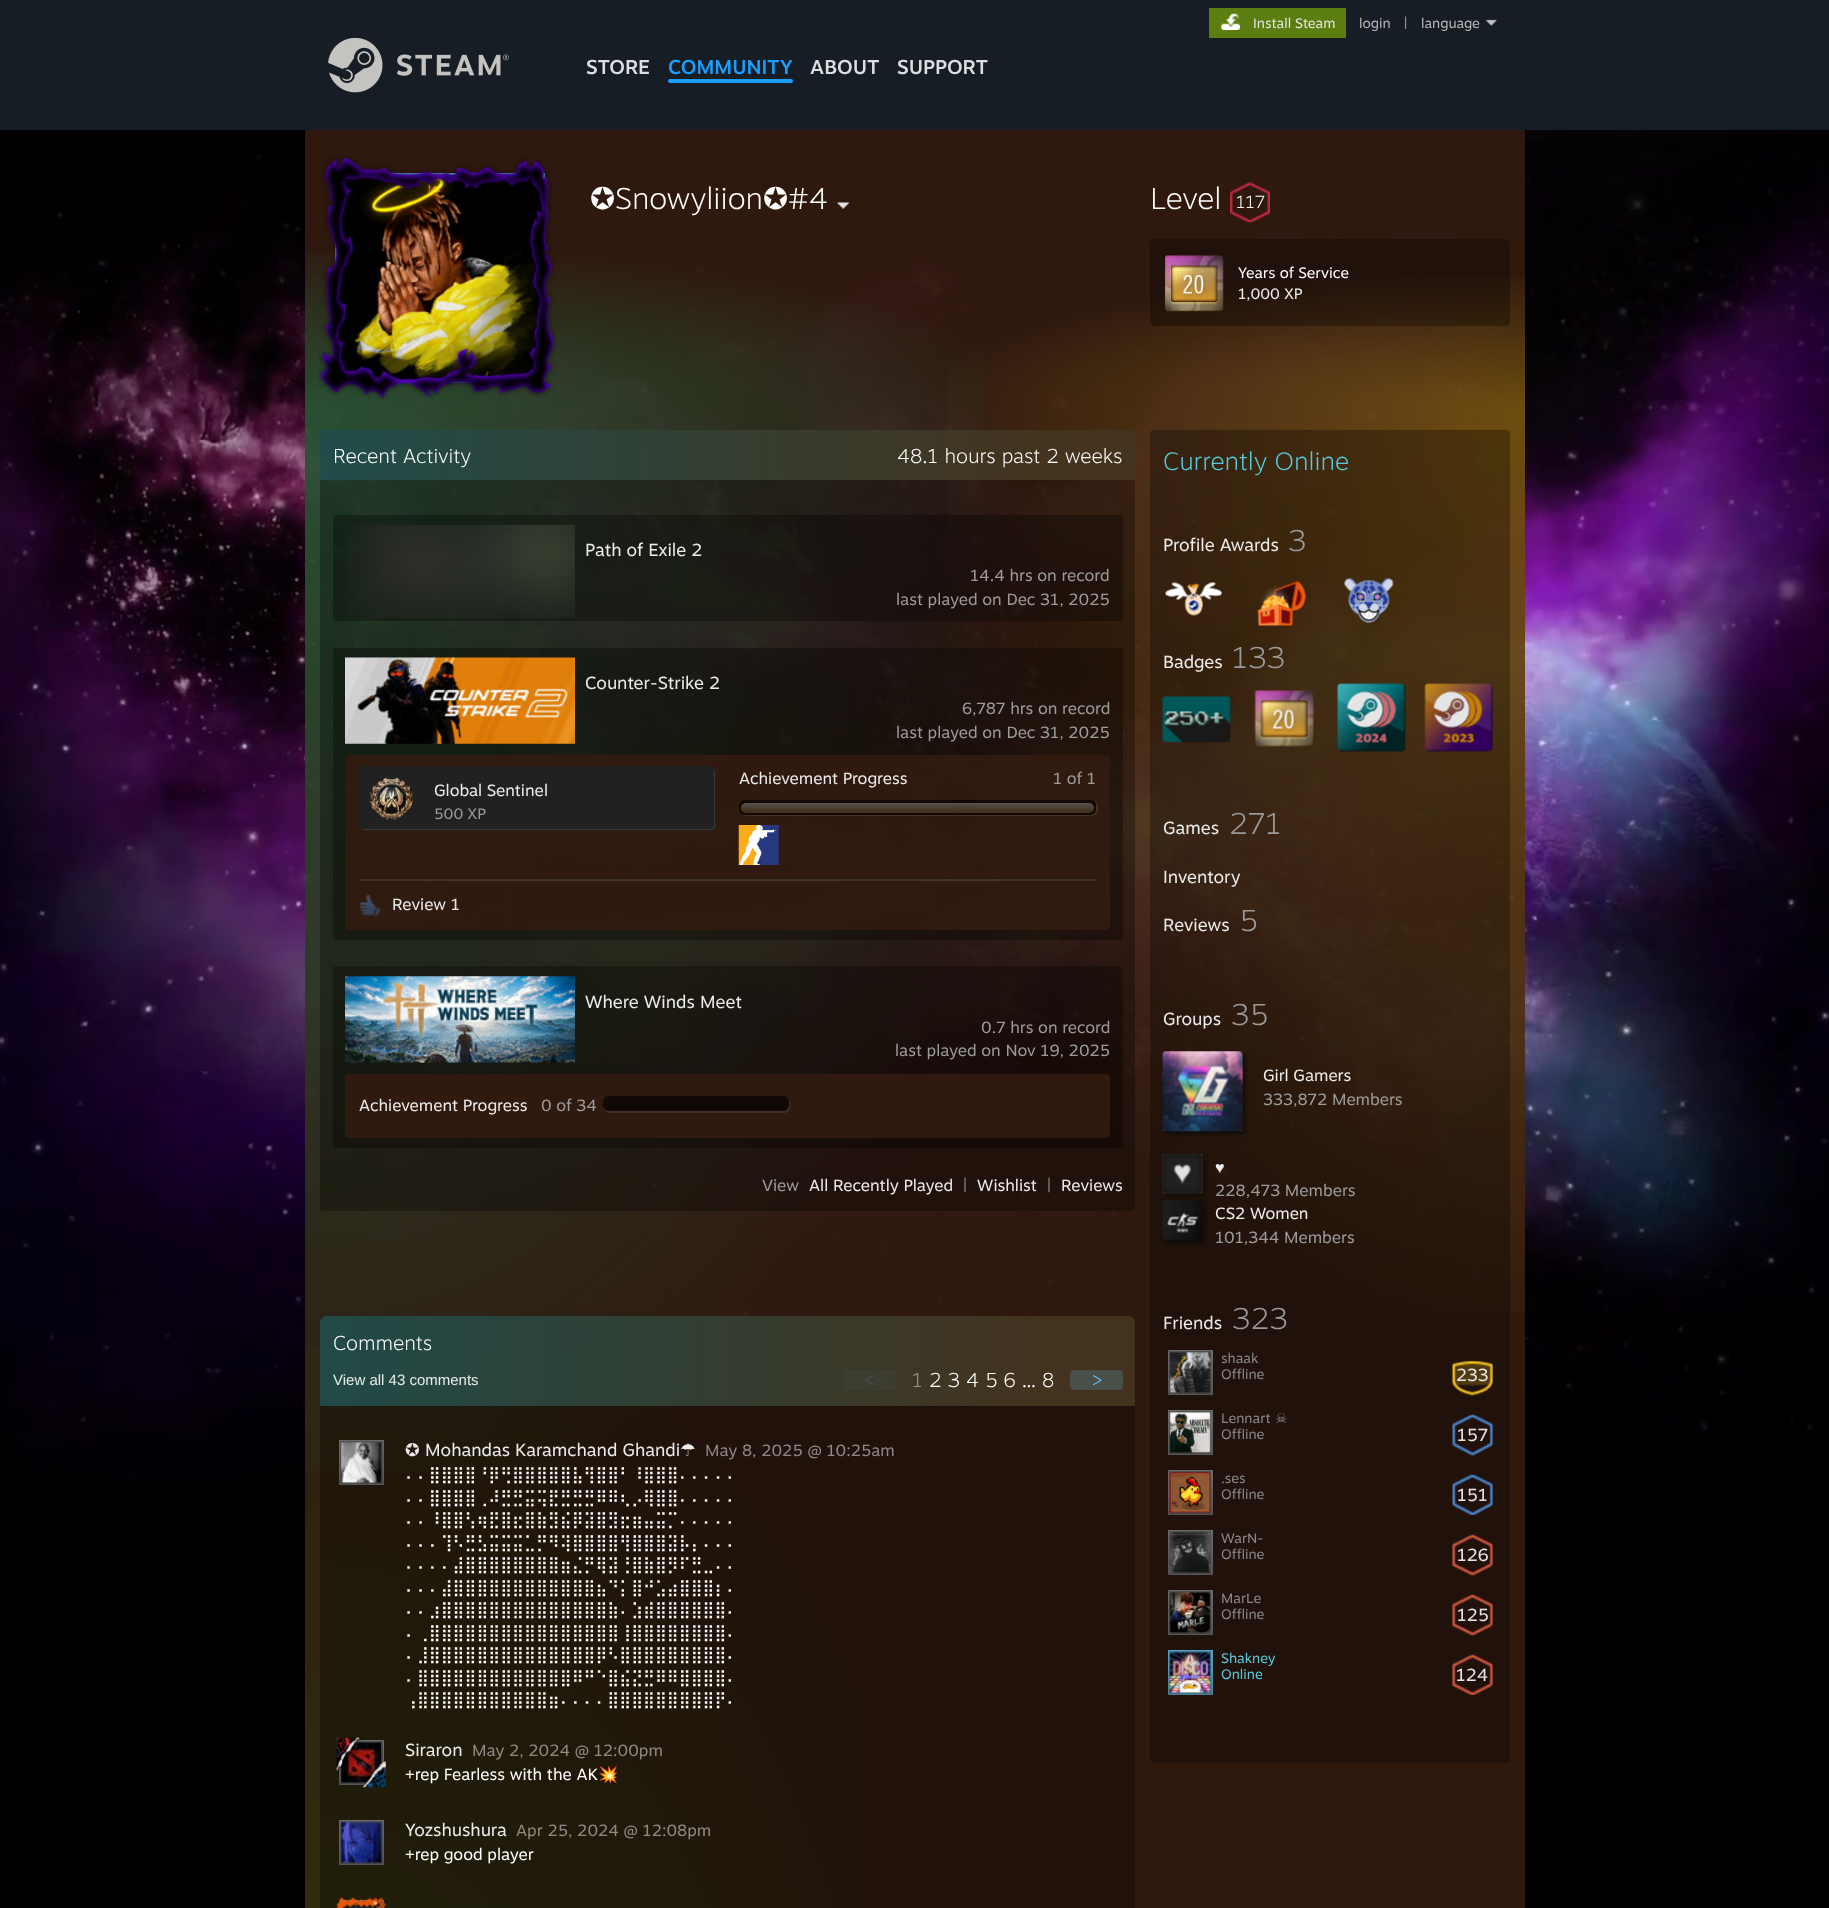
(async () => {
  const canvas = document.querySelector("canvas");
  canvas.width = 1829;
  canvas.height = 1908;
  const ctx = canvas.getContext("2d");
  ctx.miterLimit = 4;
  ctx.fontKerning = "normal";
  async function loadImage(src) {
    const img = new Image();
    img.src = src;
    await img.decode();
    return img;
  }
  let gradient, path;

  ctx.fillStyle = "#000000";
  ctx.fillRect(0, 0, 1829, 1908);
  ctx.fillStyle = "#171d25";
  ctx.fillRect(0, 0, 1829, 130);
  ctx.fillStyle = "#5c7e10";
  ctx.fillRect(1209, 8, 137, 30);
  ctx.drawImage(await loadImage("img/1.png"), 1221, 13, 19, 17);
  ctx.drawImage(await loadImage("img/2.png"), 1486, 19, 11, 7);
  ctx.drawImage(await loadImage("img/3.png"), 328, 38, 181, 55);
  ctx.fillStyle = "#1a9fff";
  ctx.beginPath();
  ctx.roundRect(668, 79, 125, 4, 2);
  ctx.fill();
  ctx.drawImage(await loadImage("img/4.png"), 0, 130, 1829, 1350);
  ctx.fillStyle = "rgba(51, 27, 16, 0.93)";
  ctx.fillRect(305, 130, 1220, 280);
  gradient = ctx.createRadialGradient(305, 1785.98, 0, 305, 1785.98, 1725);
  gradient.addColorStop(0, "rgba(9, 243, 153, 0.25)");
  gradient.addColorStop(0.43, "rgba(9, 243, 153, 0)");
  ctx.fillStyle = gradient;
  ctx.beginPath();
  ctx.rect(305, 254, 678, 156);
  ctx.save();
  ctx.clip();
  ctx.scale(1, 396 / 1725);
  ctx.fillRect(0, 0, 1829, 8312);
  ctx.restore();
  gradient = ctx.createRadialGradient(1525, 1786.43, 0, 1525, 1786.43, 1220);
  gradient.addColorStop(0, "rgba(252, 197, 16, 0.3)");
  gradient.addColorStop(0.51, "rgba(252, 197, 16, 0)");
  ctx.fillStyle = gradient;
  ctx.beginPath();
  ctx.rect(947, 277, 578, 133);
  ctx.save();
  ctx.clip();
  ctx.scale(1, 280 / 1220);
  ctx.fillRect(0, 0, 1829, 8314);
  ctx.restore();
  gradient = ctx.createLinearGradient(440, 173, 440, 383);
  gradient.addColorStop(0.05, "#53a4c4");
  gradient.addColorStop(0.95, "#458097");
  ctx.fillStyle = gradient;
  ctx.fillRect(335, 173, 210, 210);
  ctx.drawImage(await loadImage("img/6.png"), 337, 175, 206, 205);
  ctx.drawImage(await loadImage("img/5.png"), 318, 156, 238, 244);
  ctx.drawImage(await loadImage("img/7.png"), 837, 202, 12, 7);
  ctx.drawImage(await loadImage("img/8.png"), 1230, 182, 40, 41);
  ctx.fillStyle = "rgba(0, 0, 0, 0.3)";
  ctx.beginPath();
  ctx.roundRect(1150, 239, 360, 87, 4);
  ctx.fill();
  ctx.drawImage(await loadImage("img/9.png"), 1165, 255, 59, 57);
  ctx.fillStyle = "rgba(51, 27, 16, 0.93)";
  ctx.fillRect(305, 410, 1220, 1498);
  gradient = ctx.createRadialGradient(305, 1482.97, 0, 305, 1482.97, 1725);
  gradient.addColorStop(0, "rgba(48, 243, 9, 0.13)");
  gradient.addColorStop(0.43, "rgba(48, 243, 9, 0)");
  ctx.fillStyle = gradient;
  ctx.beginPath();
  ctx.rect(305, 1349, 559, 559);
  ctx.save();
  ctx.clip();
  ctx.scale(1, 2687 / 1725);
  ctx.fillRect(0, 0, 1829, 1225);
  ctx.restore();
  gradient = ctx.createRadialGradient(305, 263.21, 0, 305, 263.21, 1725);
  gradient.addColorStop(0, "rgba(9, 243, 153, 0.25)");
  gradient.addColorStop(0.43, "rgba(9, 243, 153, 0)");
  ctx.fillStyle = gradient;
  ctx.beginPath();
  ctx.rect(305, 410, 678, 1061);
  ctx.save();
  ctx.clip();
  ctx.scale(1, 2687 / 1725);
  ctx.fillRect(0, 0, 1829, 1225);
  ctx.restore();
  gradient = ctx.createRadialGradient(1525, 263.26, 0, 1525, 263.26, 1220);
  gradient.addColorStop(0, "rgba(252, 197, 16, 0.3)");
  gradient.addColorStop(0.51, "rgba(252, 197, 16, 0)");
  ctx.fillStyle = gradient;
  ctx.beginPath();
  ctx.rect(947, 410, 578, 902);
  ctx.save();
  ctx.clip();
  ctx.scale(1, 1900 / 1220);
  ctx.fillRect(0, 0, 1829, 1226);
  ctx.restore();
  ctx.fillStyle = "rgba(0, 0, 0, 0.3)";
  ctx.beginPath();
  ctx.roundRect(320, 430, 815, 781, 4);
  ctx.fill();
  gradient = ctx.createLinearGradient(320, 455, 1135, 455);
  gradient.addColorStop(0, "rgba(33, 78, 76, 0.93)");
  gradient.addColorStop(0.9, "rgba(70, 53, 31, 0.93)");
  ctx.fillStyle = gradient;
  ctx.beginPath();
  ctx.roundRect(320, 430, 815, 50, [4, 4, 0, 0]);
  ctx.fill();
  ctx.fillStyle = "rgba(0, 0, 0, 0.3)";
  ctx.beginPath();
  ctx.roundRect(333, 515, 790, 106, 4);
  ctx.fill();
  ctx.drawImage(await loadImage("img/10.png"), 345, 525, 230, 93);
  ctx.beginPath();
  ctx.roundRect(333, 648, 790, 292, 4);
  ctx.fill();
  ctx.drawImage(await loadImage("img/11.png"), 345, 657, 230, 87);
  ctx.fillStyle = "rgba(51, 27, 16, 0.93)";
  ctx.beginPath();
  ctx.roundRect(345, 755, 765, 175, 4);
  ctx.fill();
  ctx.save();
  path = new Path2D("M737 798H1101V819H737ZM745 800H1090C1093.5 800 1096 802.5 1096 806V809C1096 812.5 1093.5 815 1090 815H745C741.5 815 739 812.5 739 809V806C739 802.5 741.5 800 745 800Z");
  ctx.clip(path, "evenodd");
  ctx.fillStyle = "rgba(255, 255, 255, 0.1)";
  ctx.filter = "blur(0.5px)";
  ctx.beginPath();
  ctx.roundRect(740, 801, 358, 15, 6);
  ctx.fill();
  ctx.filter = "none";
  ctx.restore();
  ctx.fillStyle = "rgba(0, 0, 0, 0.3)";
  ctx.beginPath();
  ctx.roundRect(739, 800, 357, 15, 6);
  ctx.fill();
  ctx.fillStyle = "rgba(0, 0, 0, 0.5)";
  path = new Path2D("M745 800H1090C1092 800 1095 801 1096 804V809C1096 812 1093 815 1090 815H745C737 815 737 800 745 800Z");
  ctx.fill(path);
  gradient = ctx.createLinearGradient(918, 803, 918, 813);
  gradient.addColorStop(0, "#595350");
  gradient.addColorStop(0.8, "#42321d");
  ctx.fillStyle = gradient;
  ctx.beginPath();
  ctx.roundRect(741, 803, 353, 10, 5);
  ctx.fill();
  ctx.drawImage(await loadImage("img/12.png"), 738, 825, 41, 40);
  ctx.fillStyle = "#343944";
  path = new Path2D("M361 828C361 829 363 830 364 830H711C713 830 715 828 715 826V772C715 771 714 770 714 769V825C714 827 712 829 710 829H362Z");
  ctx.fill(path);
  ctx.fillStyle = "#212121";
  path = new Path2D("M363 766H710C712 766 714 768 714 770V825C714 827 712 829 710 829H363C361 829 359 827 359 825V770C359 768 361 766 363 766Z");
  ctx.fill(path);
  ctx.drawImage(await loadImage("img/13.png"), 369, 777, 44, 44);
  ctx.fillStyle = "#463228";
  ctx.fillRect(359, 879, 737, 2);
  ctx.fillStyle = "#231914";
  ctx.fillRect(359, 878, 737, 1);
  ctx.drawImage(await loadImage("img/14.png"), 359, 894, 22, 23);
  ctx.fillStyle = "rgba(0, 0, 0, 0.3)";
  ctx.beginPath();
  ctx.roundRect(333, 966, 790, 182, 4);
  ctx.fill();
  ctx.drawImage(await loadImage("img/15.png"), 345, 976, 230, 87);
  ctx.fillStyle = "rgba(51, 27, 16, 0.93)";
  ctx.beginPath();
  ctx.roundRect(345, 1074, 765, 64, 4);
  ctx.fill();
  ctx.save();
  path = new Path2D("M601 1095H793V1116H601ZM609 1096H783C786.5 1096 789 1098.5 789 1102V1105C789 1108.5 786.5 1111 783 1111H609C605.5 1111 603 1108.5 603 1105V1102C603 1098.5 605.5 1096 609 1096Z");
  ctx.clip(path, "evenodd");
  ctx.fillStyle = "rgba(255, 255, 255, 0.1)";
  ctx.filter = "blur(0.5px)";
  ctx.beginPath();
  ctx.roundRect(604, 1098, 186, 15, 6);
  ctx.fill();
  ctx.filter = "none";
  ctx.restore();
  ctx.fillStyle = "rgba(0, 0, 0, 0.3)";
  ctx.beginPath();
  ctx.roundRect(603, 1096, 186, 15, 6);
  ctx.fill();
  ctx.fillStyle = "rgba(0, 0, 0, 0.5)";
  path = new Path2D("M609 1096H783C786 1096 789 1099 789 1102C789 1106 788 1111 783 1111H609L606 1110C601 1107 602 1096 609 1096Z");
  ctx.fill(path);
  ctx.fillStyle = "rgba(0, 0, 0, 0.3)";
  ctx.beginPath();
  ctx.roundRect(320, 1316, 815, 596, 4);
  ctx.fill();
  gradient = ctx.createLinearGradient(320, 1361, 1135, 1361);
  gradient.addColorStop(0, "rgba(33, 78, 76, 0.93)");
  gradient.addColorStop(0.9, "rgba(70, 53, 31, 0.93)");
  ctx.fillStyle = gradient;
  ctx.beginPath();
  ctx.roundRect(320, 1316, 815, 90, [6, 6, 0, 0]);
  ctx.fill();
  ctx.fillStyle = "rgba(103, 193, 245, 0.04)";
  ctx.fillRect(844, 1370, 52, 20);
  ctx.fillStyle = "#4a4f49";
  ctx.beginPath();
  ctx.roundRect(1070, 1370, 53, 20, 4);
  ctx.fill();
  gradient = ctx.createLinearGradient(361, 1440, 361, 1485);
  gradient.addColorStop(0.05, "#6a6a6a");
  gradient.addColorStop(0.95, "#555555");
  ctx.fillStyle = gradient;
  ctx.fillRect(339, 1440, 45, 45);
  gradient = ctx.createLinearGradient(361, 1441, 361, 1484);
  gradient.addColorStop(0.05, "#515151");
  gradient.addColorStop(0.95, "#474747");
  ctx.fillStyle = gradient;
  ctx.fillRect(340, 1441, 43, 43);
  ctx.drawImage(await loadImage("img/16.png"), 341, 1442, 41, 42);
  gradient = ctx.createLinearGradient(361, 1740, 361, 1785);
  gradient.addColorStop(0.05, "#6a6a6a");
  gradient.addColorStop(0.95, "#555555");
  ctx.fillStyle = gradient;
  ctx.fillRect(339, 1740, 45, 45);
  gradient = ctx.createLinearGradient(361, 1741, 361, 1784);
  gradient.addColorStop(0.05, "#515151");
  gradient.addColorStop(0.95, "#474747");
  ctx.fillStyle = gradient;
  ctx.fillRect(340, 1741, 43, 43);
  ctx.drawImage(await loadImage("img/18.png"), 341, 1742, 41, 42);
  ctx.drawImage(await loadImage("img/17.png"), 336, 1737, 50, 51);
  gradient = ctx.createLinearGradient(361, 1820, 361, 1865);
  gradient.addColorStop(0.05, "#6a6a6a");
  gradient.addColorStop(0.95, "#555555");
  ctx.fillStyle = gradient;
  ctx.fillRect(339, 1820, 45, 45);
  gradient = ctx.createLinearGradient(361, 1821, 361, 1864);
  gradient.addColorStop(0.05, "#515151");
  gradient.addColorStop(0.95, "#474747");
  ctx.fillStyle = gradient;
  ctx.fillRect(340, 1821, 43, 43);
  ctx.drawImage(await loadImage("img/19.png"), 341, 1822, 41, 42);
  gradient = ctx.createLinearGradient(361, 1900, 361, 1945);
  gradient.addColorStop(0.05, "#6a6a6a");
  gradient.addColorStop(0.95, "#555555");
  ctx.fillStyle = gradient;
  ctx.fillRect(339, 1900, 45, 8);
  gradient = ctx.createLinearGradient(361, 1901, 361, 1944);
  gradient.addColorStop(0.05, "#515151");
  gradient.addColorStop(0.95, "#474747");
  ctx.fillStyle = gradient;
  ctx.fillRect(340, 1901, 43, 7);
  ctx.drawImage(await loadImage("img/21.png"), 341, 1902, 41, 6);
  ctx.drawImage(await loadImage("img/20.png"), 336, 1897, 50, 11);
  ctx.fillStyle = "rgba(0, 0, 0, 0.3)";
  ctx.beginPath();
  ctx.roundRect(1150, 430, 360, 1333, 4);
  ctx.fill();
  ctx.drawImage(await loadImage("img/22.png"), 1165, 582, 57, 34);
  ctx.drawImage(await loadImage("img/23.png"), 1257, 581, 49, 45);
  ctx.drawImage(await loadImage("img/24.png"), 1344, 577, 50, 46);
  ctx.drawImage(await loadImage("img/25.png"), 1162, 696, 69, 47);
  ctx.drawImage(await loadImage("img/26.png"), 1254, 690, 60, 57);
  ctx.drawImage(await loadImage("img/27.png"), 1337, 683, 69, 69);
  ctx.drawImage(await loadImage("img/28.png"), 1424, 683, 69, 69);
  ctx.save();
  path = new Path2D("M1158 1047H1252V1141H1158ZM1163 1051H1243V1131H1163Z");
  ctx.clip(path, "evenodd");
  ctx.fillStyle = "#0c0c0c";
  ctx.filter = "blur(2px)";
  ctx.beginPath();
  ctx.rect(1165, 1054, 80, 80);
  ctx.fill();
  ctx.filter = "none";
  ctx.restore();
  ctx.drawImage(await loadImage("img/29.png"), 1162, 1051, 81, 81);
  ctx.save();
  path = new Path2D("M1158 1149H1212V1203H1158ZM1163 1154H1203V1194H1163Z");
  ctx.clip(path, "evenodd");
  ctx.fillStyle = "#0c0c0c";
  ctx.filter = "blur(2px)";
  ctx.beginPath();
  ctx.rect(1165, 1156, 40, 40);
  ctx.fill();
  ctx.filter = "none";
  ctx.restore();
  ctx.drawImage(await loadImage("img/30.png"), 1162, 1153, 41, 41);
  ctx.save();
  path = new Path2D("M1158 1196H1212V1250H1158ZM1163 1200H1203V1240H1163Z");
  ctx.clip(path, "evenodd");
  ctx.fillStyle = "#0c0c0c";
  ctx.filter = "blur(2px)";
  ctx.beginPath();
  ctx.rect(1165, 1203, 40, 40);
  ctx.fill();
  ctx.filter = "none";
  ctx.restore();
  ctx.drawImage(await loadImage("img/31.png"), 1162, 1200, 41, 40);
  gradient = ctx.createLinearGradient(1190, 1350, 1190, 1395);
  gradient.addColorStop(0.05, "#6a6a6a");
  gradient.addColorStop(0.95, "#555555");
  ctx.fillStyle = gradient;
  ctx.fillRect(1168, 1350, 45, 45);
  gradient = ctx.createLinearGradient(1190, 1351, 1190, 1394);
  gradient.addColorStop(0.05, "#515151");
  gradient.addColorStop(0.95, "#474747");
  ctx.fillStyle = gradient;
  ctx.fillRect(1169, 1351, 42, 43);
  ctx.drawImage(await loadImage("img/32.png"), 1169, 1352, 42, 42);
  ctx.drawImage(await loadImage("img/33.png"), 1451, 1360, 42, 36);
  gradient = ctx.createLinearGradient(1190, 1410, 1190, 1455);
  gradient.addColorStop(0.05, "#6a6a6a");
  gradient.addColorStop(0.95, "#555555");
  ctx.fillStyle = gradient;
  ctx.fillRect(1168, 1410, 45, 45);
  gradient = ctx.createLinearGradient(1190, 1411, 1190, 1454);
  gradient.addColorStop(0.05, "#515151");
  gradient.addColorStop(0.95, "#474747");
  ctx.fillStyle = gradient;
  ctx.fillRect(1169, 1411, 42, 43);
  ctx.drawImage(await loadImage("img/34.png"), 1169, 1412, 42, 42);
  ctx.drawImage(await loadImage("img/35.png"), 1451, 1414, 42, 42);
  gradient = ctx.createLinearGradient(1190, 1470, 1190, 1515);
  gradient.addColorStop(0.05, "#6a6a6a");
  gradient.addColorStop(0.95, "#555555");
  ctx.fillStyle = gradient;
  ctx.fillRect(1168, 1470, 45, 45);
  gradient = ctx.createLinearGradient(1190, 1471, 1190, 1514);
  gradient.addColorStop(0.05, "#515151");
  gradient.addColorStop(0.95, "#474747");
  ctx.fillStyle = gradient;
  ctx.fillRect(1169, 1471, 42, 43);
  ctx.drawImage(await loadImage("img/36.png"), 1169, 1472, 42, 42);
  ctx.drawImage(await loadImage("img/37.png"), 1451, 1474, 42, 41);
  gradient = ctx.createLinearGradient(1190, 1530, 1190, 1575);
  gradient.addColorStop(0.05, "#6a6a6a");
  gradient.addColorStop(0.95, "#555555");
  ctx.fillStyle = gradient;
  ctx.fillRect(1168, 1530, 45, 45);
  gradient = ctx.createLinearGradient(1190, 1531, 1190, 1574);
  gradient.addColorStop(0.05, "#515151");
  gradient.addColorStop(0.95, "#474747");
  ctx.fillStyle = gradient;
  ctx.fillRect(1169, 1531, 42, 43);
  ctx.drawImage(await loadImage("img/38.png"), 1169, 1532, 42, 41);
  ctx.drawImage(await loadImage("img/39.png"), 1451, 1534, 42, 42);
  gradient = ctx.createLinearGradient(1190, 1590, 1190, 1635);
  gradient.addColorStop(0.05, "#6a6a6a");
  gradient.addColorStop(0.95, "#555555");
  ctx.fillStyle = gradient;
  ctx.fillRect(1168, 1590, 45, 45);
  gradient = ctx.createLinearGradient(1190, 1591, 1190, 1634);
  gradient.addColorStop(0.05, "#515151");
  gradient.addColorStop(0.95, "#474747");
  ctx.fillStyle = gradient;
  ctx.fillRect(1169, 1591, 42, 43);
  ctx.drawImage(await loadImage("img/40.png"), 1169, 1592, 42, 42);
  ctx.drawImage(await loadImage("img/39.png"), 1451, 1594, 42, 42);
  gradient = ctx.createLinearGradient(1190, 1650, 1190, 1695);
  gradient.addColorStop(0.05, "#53a4c4");
  gradient.addColorStop(0.95, "#458097");
  ctx.fillStyle = gradient;
  ctx.fillRect(1168, 1650, 45, 45);
  gradient = ctx.createLinearGradient(1190, 1651, 1190, 1694);
  gradient.addColorStop(0.05, "#41778f");
  gradient.addColorStop(0.95, "#3d697b");
  ctx.fillStyle = gradient;
  ctx.fillRect(1169, 1651, 42, 43);
  ctx.drawImage(await loadImage("img/41.png"), 1169, 1652, 42, 42);
  ctx.drawImage(await loadImage("img/42.png"), 1451, 1654, 42, 41);
  ctx.font = "13.75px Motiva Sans";
  ctx.fillStyle = "#e5e4dc";
  ctx.fillText("Install Steam", 1253, 28);
  ctx.fillStyle = "#b8b6b4";
  for (const [text, x, y] of [
    ["login", 1359, 28],
    ["|", 1404, 28],
    ["language", 1421, 28],
  ]) {
    ctx.fillText(text, x, y);
  }
  ctx.font = "500 20px Motiva Sans";
  ctx.fillStyle = "#dcdedf";
  ctx.fillText("STORE", 586, 74);
  ctx.fillStyle = "#1a9fff";
  ctx.fillText("COMMUNITY", 668, 74);
  ctx.fillStyle = "#dcdedf";
  ctx.fillText("ABOUT", 810, 74);
  ctx.fillText("SUPPORT", 897, 74);
  ctx.font = "30px DejaVu Sans";
  ctx.fillStyle = "#ffffff";
  ctx.fillText("✪", 590, 209);
  ctx.font = "100 30px Motiva Sans";
  ctx.fillText("Snowyliion", 615, 209);
  ctx.font = "30px DejaVu Sans";
  ctx.fillText("✪", 763, 209);
  ctx.font = "100 30px Motiva Sans";
  ctx.fillText("#4", 788, 209);
  ctx.fillText("Level", 1150, 209);
  ctx.font = "100 17.5px Motiva Sans";
  ctx.fillText("117", 1236, 208);
  ctx.font = "15px Motiva Sans";
  ctx.fillText("Years of Service", 1238, 278);
  ctx.fillStyle = "#ebebeb";
  ctx.fillText("1,000 XP", 1238, 299);
  ctx.font = "100 20px Motiva Sans";
  ctx.fillStyle = "#ffffff";
  ctx.fillText("Recent Activity", 333, 463);
  ctx.fillText("48.1 hours past 2 weeks", 897, 463);
  ctx.font = "17.5px Motiva Sans";
  ctx.fillStyle = "#ebebeb";
  ctx.fillText("Path of Exile 2", 585, 556);
  ctx.font = "16.25px Motiva Sans";
  ctx.fillStyle = "#9b9b9b";
  ctx.fillText("14.4 hrs on record", 970, 581);
  ctx.fillText("last played on Dec 31, 2025", 896, 605);
  ctx.font = "17.5px Motiva Sans";
  ctx.fillStyle = "#ebebeb";
  ctx.fillText("Counter-Strike 2", 585, 689);
  ctx.font = "16.25px Motiva Sans";
  ctx.fillStyle = "#9b9b9b";
  ctx.fillText("6,787 hrs on record", 962, 714);
  ctx.fillText("last played on Dec 31, 2025", 896, 738);
  ctx.fillStyle = "#ebebeb";
  ctx.fillText("Achievement Progress", 739, 784);
  ctx.fillStyle = "#9b9b9b";
  ctx.fillText("1 of 1", 1053, 784);
  ctx.fillStyle = "#ebebeb";
  ctx.fillText("Global Sentinel", 434, 796);
  ctx.font = "15px Motiva Sans";
  ctx.fillStyle = "#9b9b9b";
  ctx.fillText("500 XP", 434, 819);
  ctx.font = "16.25px Motiva Sans";
  ctx.fillStyle = "#ebebeb";
  ctx.fillText("Review 1", 392, 910);
  ctx.font = "17.5px Motiva Sans";
  ctx.fillText("Where Winds Meet", 585, 1008);
  ctx.font = "16.25px Motiva Sans";
  ctx.fillStyle = "#9b9b9b";
  ctx.fillText("0.7 hrs on record", 981, 1033);
  ctx.fillText("last played on Nov 19, 2025", 895, 1056);
  ctx.fillStyle = "#ebebeb";
  ctx.fillText("Achievement Progress", 359, 1111);
  ctx.fillStyle = "#9b9b9b";
  ctx.fillText("0 of 34", 541, 1111);
  ctx.fillText("View", 762, 1191);
  ctx.fillStyle = "#ebebeb";
  ctx.fillText("All Recently Played", 809, 1191);
  ctx.fillStyle = "#9b9b9b";
  ctx.fillText("|", 963, 1191);
  ctx.fillStyle = "#ebebeb";
  ctx.fillText("Wishlist", 977, 1191);
  ctx.fillStyle = "#9b9b9b";
  ctx.fillText("|", 1047, 1191);
  ctx.fillStyle = "#ebebeb";
  ctx.fillText("Reviews", 1061, 1191);
  ctx.font = "100 20px Motiva Sans";
  ctx.fillStyle = "#ffffff";
  ctx.fillText("Comments", 333, 1350);
  ctx.font = "15px Liberation Sans";
  ctx.fillStyle = "#ebebeb";
  ctx.fillText("View all 43 comments", 333, 1385);
  ctx.font = "100 20px Motiva Sans";
  ctx.fillStyle = "#445351";
  ctx.fillText("<", 864, 1387);
  ctx.fillStyle = "#939393";
  ctx.fillText("1", 912, 1387);
  ctx.fillStyle = "#ffffff";
  ctx.fillText("2 3 4 5 6 ... 8", 929, 1387);
  ctx.fillStyle = "#66c0f4";
  ctx.fillText(">", 1091, 1387);
  ctx.font = "17.5px DejaVu Sans";
  ctx.fillStyle = "#ebebeb";
  ctx.fillText("✪", 405, 1456);
  ctx.font = "17.5px Motiva Sans";
  ctx.fillText("Mohandas Karamchand Ghandi", 425, 1456);
  ctx.font = "17.5px DejaVu Sans";
  ctx.fillText("☂", 680, 1456);
  ctx.font = "16.25px Motiva Sans";
  ctx.fillStyle = "#908885";
  ctx.fillText("May 8, 2025 @ 10:25am", 705, 1456);
  ctx.font = "16.25px DejaVu Sans";
  ctx.fillStyle = "#ffffff";
  for (const [text, x, y] of [
    ["⠄⠄⣿⣿⣿⣿⠘⡿⢛⣿⣿⣿⣿⣿⣧⢻⣿⣿⠃⠸⣿⣿⣿⠄⠄⠄⠄⠄", 405, 1480],
    ["⠄⠄⣿⣿⣿⣿⢀⠼⣛⣛⣭⢭⣟⣛⣛⣛⠿⠿⢆⡠⢿⣿⣿⠄⠄⠄⠄⠄", 405, 1503],
    ["⠄⠄⠸⣿⣿⢣⢶⣟⣿⣖⣿⣷⣻⣮⡿⣽⣿⣻⣖⣶⣤⣭⡉⠄⠄⠄⠄⠄", 405, 1525],
    ["⠄⠄⠄⢹⠣⣛⣣⣭⣭⣭⣁⡛⠻⢽⣿⣿⣿⣿⢻⣿⣿⣿⣽⡧⡄⠄⠄⠄", 405, 1548],
    ["⠄⠄⠄⠄⣼⣿⣿⣿⣿⣿⣿⣿⣿⣶⣌⡛⢿⣽⢘⣿⣷⣿⡻⠏⣛⣀⠄⠄", 405, 1570],
    ["⠄⠄⠄⣼⣿⣿⣿⣿⣿⣿⣿⣿⣿⣿⣿⣿⣦⠙⡅⣿⠚⣡⣴⣿⣿⣿⡆⠄", 405, 1593],
    ["⠄⠄⣰⣿⣿⣿⣿⣿⣿⣿⣿⣿⣿⣿⣿⣿⣿⣷⠄⣱⣾⣿⣿⣿⣿⣿⣿⠄", 405, 1615],
    ["⠄⢀⣿⣿⣿⣿⣿⣿⣿⣿⣿⣿⣿⣿⣿⣿⣿⣿⢸⣿⣿⣿⣿⣿⣿⣿⣿⠄", 405, 1638],
    ["⠄⣸⣿⣿⣿⣿⣿⣿⣿⣿⣿⣿⣿⣿⣿⣿⡿⠣⣿⣿⣿⣿⣿⣿⣿⣿⣿⠄", 405, 1660],
    ["⠄⣿⣿⣿⣿⣿⣿⣿⣿⣿⣿⣿⣿⣿⠿⠛⠑⣿⣮⣝⣛⠿⠿⣿⣿⣿⣿⠄", 405, 1683],
    ["⢠⣿⣿⣿⣿⣿⣿⣿⣿⣿⣿⣿⣶⠄⠄⠄⠄⣿⣿⣿⣿⣿⣿⣿⣿⣿⡟⠄", 405, 1705],
  ]) {
    ctx.fillText(text, x, y);
  }
  ctx.font = "17.5px Motiva Sans";
  ctx.fillStyle = "#ebebeb";
  ctx.fillText("Siraron", 405, 1756);
  ctx.font = "16.25px Motiva Sans";
  ctx.fillStyle = "#908885";
  ctx.fillText("May 2, 2024 @ 12:00pm", 472, 1756);
  ctx.fillStyle = "#ffffff";
  ctx.fillText("+rep Fearless with the AK", 405, 1780);
  ctx.font = "16.25px Noto Color Emoji";
  ctx.fillText("💥", 598, 1780);
  ctx.font = "17.5px Motiva Sans";
  ctx.fillStyle = "#ebebeb";
  ctx.fillText("Yozshushura", 405, 1836);
  ctx.font = "16.25px Motiva Sans";
  ctx.fillStyle = "#908885";
  ctx.fillText("Apr 25, 2024 @ 12:08pm", 516, 1836);
  ctx.fillStyle = "#ffffff";
  ctx.fillText("+rep good player", 405, 1860);
  ctx.font = "100 25px Motiva Sans";
  ctx.fillStyle = "#57cbde";
  ctx.fillText("Currently Online", 1163, 470);
  ctx.font = "17.5px Motiva Sans";
  ctx.fillStyle = "#ebebeb";
  ctx.fillText("Profile Awards", 1163, 551);
  ctx.font = "100 30px Motiva Sans";
  ctx.fillStyle = "#9b9b9b";
  ctx.fillText("3", 1288, 551);
  ctx.font = "17.5px Motiva Sans";
  ctx.fillStyle = "#ebebeb";
  ctx.fillText("Badges", 1163, 668);
  ctx.font = "100 30px Motiva Sans";
  ctx.fillStyle = "#9b9b9b";
  ctx.fillText("133", 1232, 668);
  ctx.font = "17.5px Motiva Sans";
  ctx.fillStyle = "#ebebeb";
  ctx.fillText("Games", 1163, 834);
  ctx.font = "100 30px Motiva Sans";
  ctx.fillStyle = "#9b9b9b";
  ctx.fillText("271", 1229, 834);
  ctx.font = "17.5px Motiva Sans";
  ctx.fillStyle = "#ebebeb";
  ctx.fillText("Inventory", 1163, 883);
  ctx.fillText("Reviews", 1163, 931);
  ctx.font = "100 30px Motiva Sans";
  ctx.fillStyle = "#9b9b9b";
  ctx.fillText("5", 1239, 931);
  ctx.font = "17.5px Motiva Sans";
  ctx.fillStyle = "#ebebeb";
  ctx.fillText("Groups", 1163, 1025);
  ctx.font = "100 30px Motiva Sans";
  ctx.fillStyle = "#9b9b9b";
  ctx.fillText("35", 1231, 1025);
  ctx.font = "16.25px Motiva Sans";
  ctx.fillStyle = "#ebebeb";
  ctx.fillText("Girl Gamers", 1263, 1081);
  ctx.fillStyle = "#9b9b9b";
  ctx.fillText("333,872 Members", 1263, 1105);
  ctx.font = "16.25px Liberation Sans";
  ctx.fillStyle = "#ebebeb";
  ctx.fillText("♥", 1215, 1173);
  ctx.font = "16.25px Motiva Sans";
  ctx.fillStyle = "#9b9b9b";
  ctx.fillText("228,473 Members", 1215, 1196);
  ctx.fillStyle = "#ebebeb";
  ctx.fillText("CS2 Women", 1215, 1219);
  ctx.fillStyle = "#9b9b9b";
  ctx.fillText("101,344 Members", 1215, 1243);
  ctx.font = "17.5px Motiva Sans";
  ctx.fillStyle = "#ebebeb";
  ctx.fillText("Friends", 1163, 1329);
  ctx.font = "100 30px Motiva Sans";
  ctx.fillStyle = "#9b9b9b";
  ctx.fillText("323", 1232, 1329);
  ctx.font = "13.75px Motiva Sans";
  ctx.fillStyle = "#898989";
  ctx.fillText("shaak", 1221, 1363);
  ctx.fillText("Offline", 1221, 1379);
  ctx.font = "17.5px Motiva Sans";
  ctx.fillStyle = "#e5e5e5";
  ctx.fillText("233", 1456, 1381);
  ctx.font = "13.75px Motiva Sans";
  ctx.fillStyle = "#898989";
  ctx.fillText("Lennart", 1221, 1423);
  ctx.font = "13.75px DejaVu Sans";
  ctx.fillText("☠", 1275, 1423);
  ctx.font = "13.75px Motiva Sans";
  ctx.fillText("Offline", 1221, 1439);
  ctx.font = "17.5px Motiva Sans";
  ctx.fillStyle = "#e5e5e5";
  ctx.fillText("157", 1457, 1441);
  ctx.font = "13.75px Motiva Sans";
  ctx.fillStyle = "#898989";
  ctx.fillText(".ses", 1221, 1483);
  ctx.fillText("Offline", 1221, 1499);
  ctx.font = "17.5px Motiva Sans";
  ctx.fillStyle = "#e5e5e5";
  ctx.fillText("151", 1457, 1501);
  ctx.font = "13.75px Motiva Sans";
  ctx.fillStyle = "#898989";
  ctx.fillText("WarN-", 1221, 1543);
  ctx.fillText("Offline", 1221, 1559);
  ctx.font = "17.5px Motiva Sans";
  ctx.fillStyle = "#e5e5e5";
  ctx.fillText("126", 1457, 1561);
  ctx.font = "13.75px Motiva Sans";
  ctx.fillStyle = "#898989";
  ctx.fillText("MarLe", 1221, 1603);
  ctx.fillText("Offline", 1221, 1619);
  ctx.font = "17.5px Motiva Sans";
  ctx.fillStyle = "#e5e5e5";
  ctx.fillText("125", 1457, 1621);
  ctx.font = "13.75px Motiva Sans";
  ctx.fillStyle = "#57cbde";
  ctx.fillText("Shakney", 1221, 1663);
  ctx.fillText("Online", 1221, 1679);
  ctx.font = "17.5px Motiva Sans";
  ctx.fillStyle = "#e5e5e5";
  ctx.fillText("124", 1456, 1681);
})();
